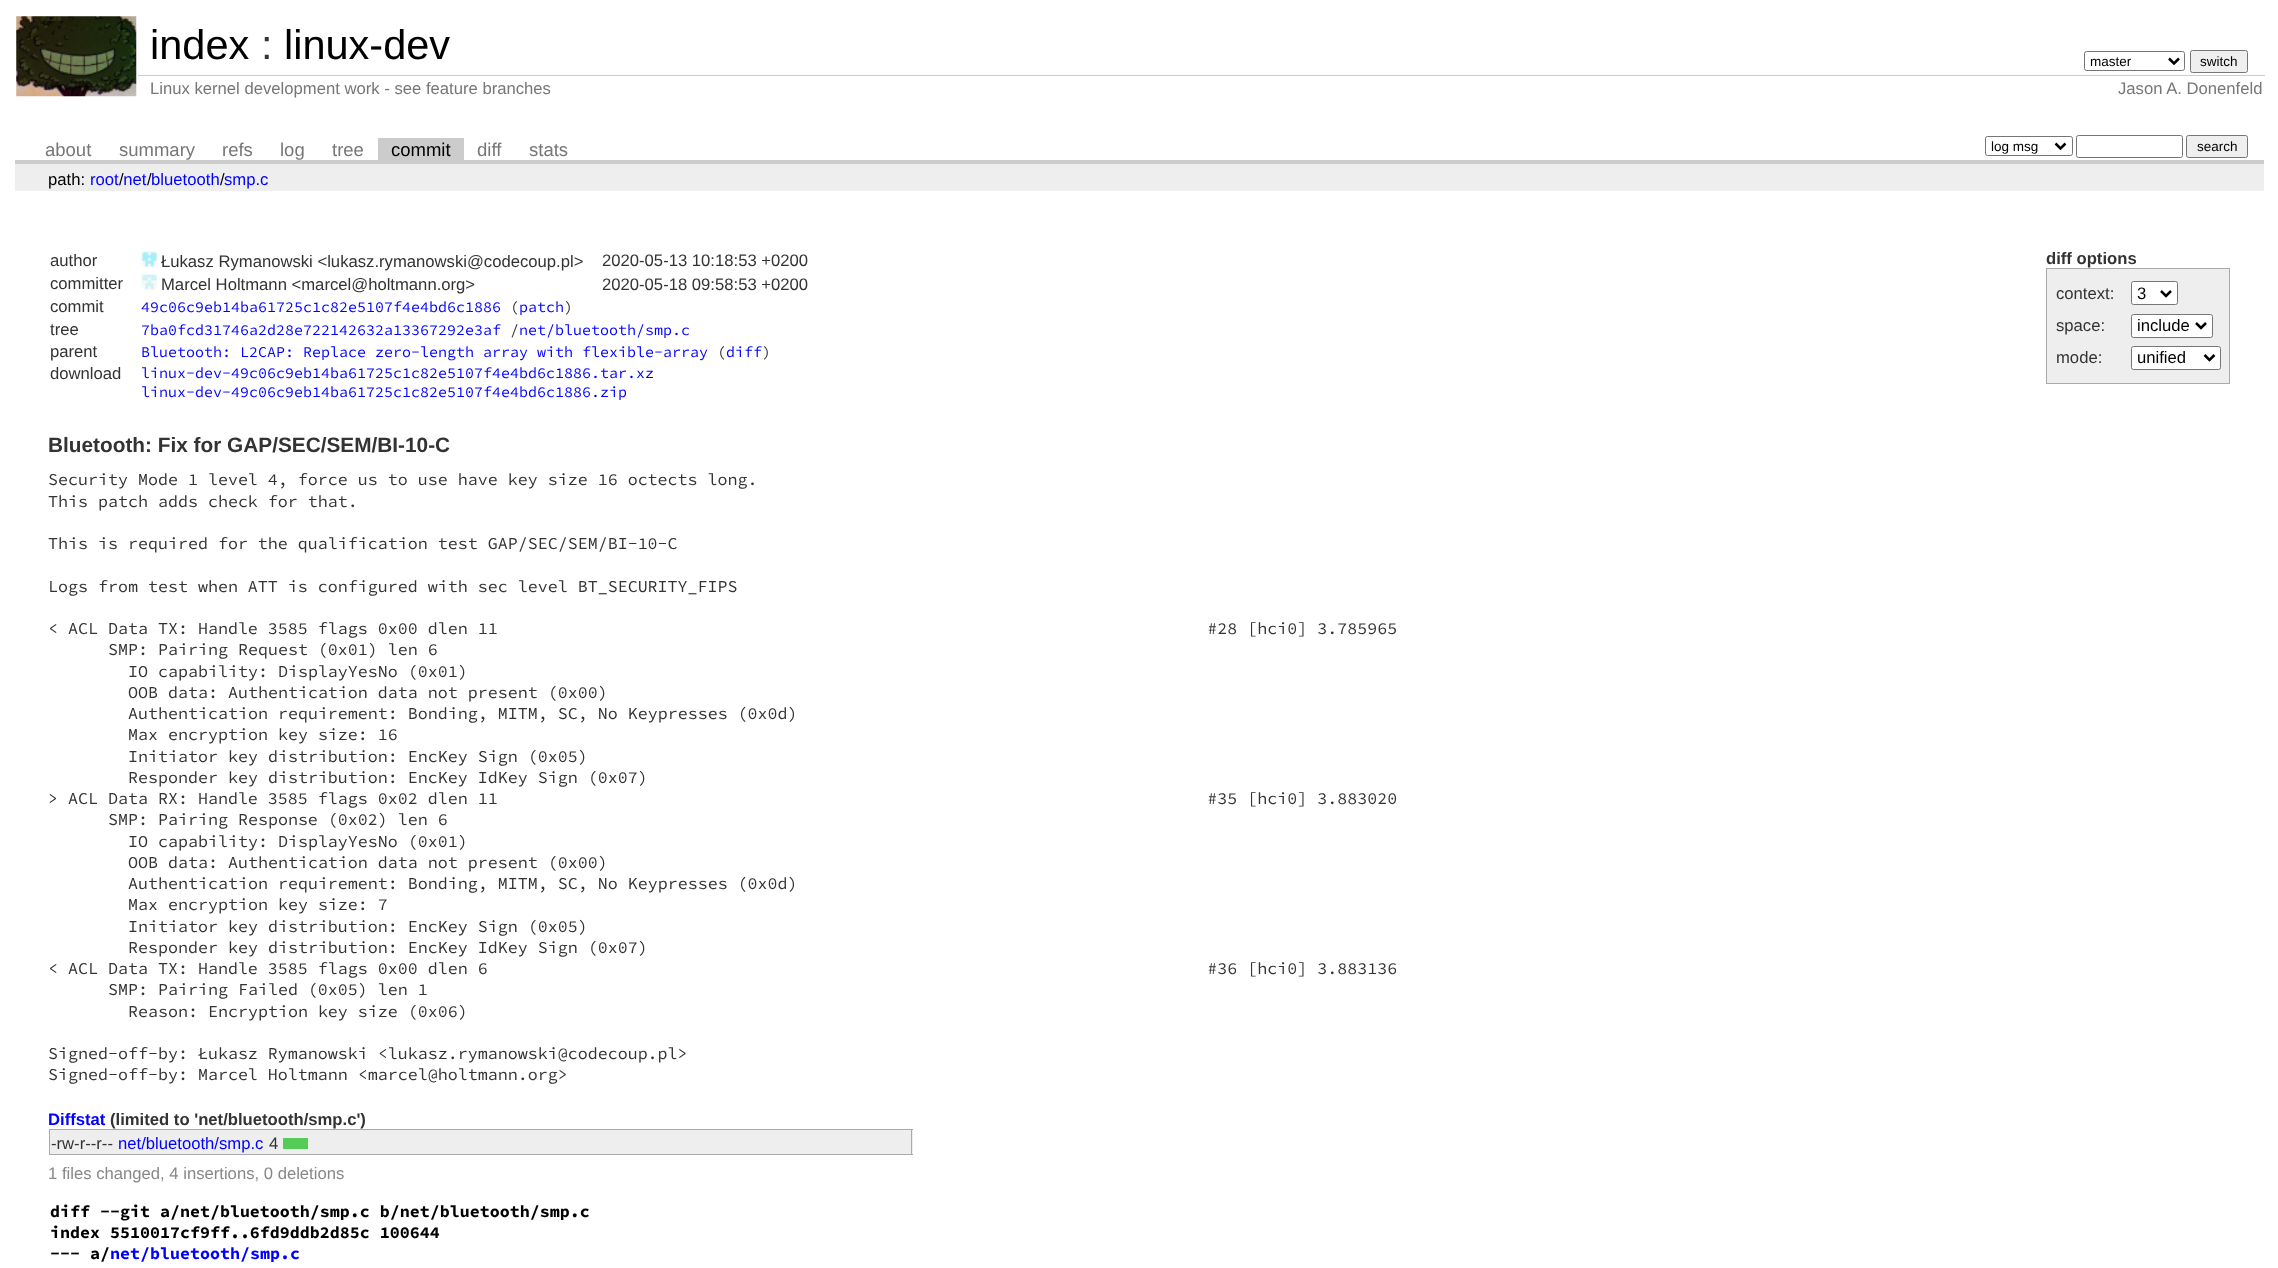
(async () => {
  const canvas = document.querySelector("canvas");
  canvas.width = 2278;
  canvas.height = 1268;
  const ctx = canvas.getContext("2d");
  ctx.miterLimit = 4;
  ctx.fontKerning = "normal";
  async function loadImage(src) {
    const img = new Image();
    img.src = src;
    await img.decode();
    return img;
  }
  let path;

  ctx.fillStyle = "#ffffff";
  ctx.fillRect(0, 0, 2278, 1268);
  ctx.drawImage(await loadImage("img/1.png"), 16, 16, 121, 81);
  ctx.beginPath();
  ctx.roundRect(2084.5, 51.5, 100, 19, 2);
  ctx.strokeStyle = "#767676";
  ctx.stroke();
  path = new Path2D("M2169 58.5L2174 63.5L2179 58.5");
  ctx.strokeStyle = "#000000";
  ctx.lineWidth = 2.5;
  ctx.stroke(path);
  ctx.fillStyle = "#efefef";
  ctx.beginPath();
  ctx.roundRect(2190.5, 50.5, 57, 22, 2);
  ctx.fill();
  ctx.strokeStyle = "#767676";
  ctx.lineWidth = 1;
  ctx.stroke();
  for (const [x, y, w, h, color] of [
    [138, 75, 2127, 1, "#cccccc"],
    [15, 160, 2249, 4, "#cccccc"],
    [378, 138, 86, 22, "#cccccc"],
  ]) {
    ctx.fillStyle = color;
    ctx.fillRect(x, y, w, h);
  }
  ctx.beginPath();
  ctx.roundRect(1985.5, 136.5, 87, 19, 2);
  ctx.stroke();
  path = new Path2D("M2055.5 143.5L2060.5 148.5L2065.5 143.5");
  ctx.strokeStyle = "#000000";
  ctx.lineWidth = 2.5;
  ctx.stroke(path);
  ctx.beginPath();
  ctx.roundRect(2076.5, 135.5, 106, 22, 2);
  ctx.strokeStyle = "#767676";
  ctx.lineWidth = 1;
  ctx.stroke();
  ctx.fillStyle = "#efefef";
  ctx.beginPath();
  ctx.roundRect(2186.5, 135.5, 61, 22, 2);
  ctx.fill();
  ctx.stroke();
  ctx.fillStyle = "#eeeeee";
  ctx.fillRect(15, 164, 2249, 27);
  ctx.drawImage(await loadImage("img/2.png"), 141, 251, 17, 17);
  ctx.drawImage(await loadImage("img/3.png"), 141, 274, 17, 16);
  for (const [x, y, w, h, color] of [
    [2047, 269, 182, 114, "#eeeeee"],
    [2046, 268, 184, 1, "#aaaaaa"],
    [2229, 268, 1, 116, "#aaaaaa"],
    [2046, 383, 184, 1, "#aaaaaa"],
    [2046, 268, 1, 116, "#aaaaaa"],
  ]) {
    ctx.fillStyle = color;
    ctx.fillRect(x, y, w, h);
  }
  ctx.fillStyle = "#ffffff";
  ctx.beginPath();
  ctx.roundRect(2131.5, 281.5, 46, 23, 2);
  ctx.fill();
  ctx.stroke();
  path = new Path2D("M2161 291L2166 296L2171 291");
  ctx.strokeStyle = "#000000";
  ctx.lineWidth = 2.5;
  ctx.stroke(path);
  ctx.beginPath();
  ctx.roundRect(2131.5, 314.5, 81, 23, 2);
  ctx.fill();
  ctx.strokeStyle = "#767676";
  ctx.lineWidth = 1;
  ctx.stroke();
  path = new Path2D("M2196 323L2201 328L2206 323");
  ctx.strokeStyle = "#000000";
  ctx.lineWidth = 2.5;
  ctx.stroke(path);
  ctx.beginPath();
  ctx.roundRect(2131.5, 346.5, 89, 23, 2);
  ctx.fill();
  ctx.strokeStyle = "#767676";
  ctx.lineWidth = 1;
  ctx.stroke();
  path = new Path2D("M2204.5 355L2209.5 360L2214.5 355");
  ctx.strokeStyle = "#000000";
  ctx.lineWidth = 2.5;
  ctx.stroke(path);
  for (const [x, y, w, h, color] of [
    [50, 1130, 863, 24, "#eeeeee"],
    [49, 1129, 864, 1, "#aaaaaa"],
    [911, 1129, 1, 26, "#aaaaaa"],
    [49, 1154, 864, 1, "#aaaaaa"],
    [49, 1129, 1, 26, "#aaaaaa"],
    [283, 1138, 25, 11, "#55cc55"],
  ]) {
    ctx.fillStyle = color;
    ctx.fillRect(x, y, w, h);
  }
  ctx.font = "41.5px Liberation Sans";
  ctx.fillStyle = "#000000";
  ctx.fillText("index", 150, 59);
  ctx.fillStyle = "#333333";
  ctx.fillText(":", 261, 59);
  ctx.fillStyle = "#000000";
  ctx.fillText("linux-dev", 284, 59);
  ctx.font = "13.5px Liberation Sans";
  ctx.fillText("master", 2090, 66);
  ctx.fillText("switch", 2200, 66);
  ctx.font = "16.67px Liberation Sans";
  ctx.fillStyle = "#777777";
  ctx.fillText("Linux kernel development work - see feature branches", 150, 94);
  ctx.fillText("Jason A. Donenfeld", 2118, 94);
  ctx.font = "18.5px Liberation Sans";
  for (const [text, x, y] of [
    ["about", 45, 156],
    ["summary", 119, 156],
    ["refs", 222, 156],
    ["log", 280, 156],
    ["tree", 332, 156],
  ]) {
    ctx.fillText(text, x, y);
  }
  ctx.fillStyle = "#000000";
  ctx.fillText("commit", 391, 156);
  ctx.fillStyle = "#777777";
  ctx.fillText("diff", 477, 156);
  ctx.fillText("stats", 529, 156);
  ctx.font = "13.5px Liberation Sans";
  ctx.fillStyle = "#000000";
  ctx.fillText("log msg", 1991, 151);
  ctx.fillText("search", 2197, 151);
  ctx.font = "16.67px Liberation Sans";
  ctx.fillText("path:", 48, 185);
  ctx.fillStyle = "#0000ff";
  ctx.fillText("root net bluetooth", 90, 185);
  ctx.fillStyle = "#000000";
  for (const [text, x, y] of [
    ["/", 119, 185],
    ["/", 147, 185],
    ["/", 220, 185],
  ]) {
    ctx.fillText(text, x, y);
  }
  ctx.fillStyle = "#0000ff";
  ctx.fillText("smp.c", 224, 185);
  ctx.fillStyle = "#333333";
  for (const [text, x, y] of [
    ["author", 50, 266],
    ["Łukasz Rymanowski <lukasz.rymanowski@codecoup.pl>", 161, 267],
    ["2020-05-13 10:18:53 +0200", 602, 266],
    ["committer", 50, 289],
    ["Marcel Holtmann <marcel@holtmann.org>", 161, 290],
    ["2020-05-18 09:58:53 +0200", 602, 290],
    ["commit", 50, 312],
  ]) {
    ctx.fillText(text, x, y);
  }
  ctx.font = "15px Source Code Pro";
  ctx.fillStyle = "#0000ff";
  ctx.fillText("49c06c9eb14ba61725c1c82e5107f4e4bd6c1886", 141, 312);
  ctx.fillStyle = "#333333";
  ctx.fillText("(", 510, 312);
  ctx.fillStyle = "#0000ff";
  ctx.fillText("patch", 519, 312);
  ctx.fillStyle = "#333333";
  ctx.fillText(")", 564, 312);
  ctx.font = "16.67px Liberation Sans";
  ctx.fillText("tree", 50, 335);
  ctx.font = "15px Source Code Pro";
  ctx.fillStyle = "#0000ff";
  ctx.fillText("7ba0fcd31746a2d28e722142632a13367292e3af", 141, 335);
  ctx.fillStyle = "#333333";
  ctx.fillText("/", 510, 335);
  ctx.fillStyle = "#0000ff";
  ctx.fillText("net/bluetooth/smp.c", 519, 335);
  ctx.font = "16.67px Liberation Sans";
  ctx.fillStyle = "#333333";
  ctx.fillText("parent", 50, 357);
  ctx.font = "15px Source Code Pro";
  ctx.fillStyle = "#0000ff";
  ctx.fillText("Bluetooth: L2CAP: Replace zero-length array with flexible-array", 141, 357);
  ctx.fillStyle = "#333333";
  ctx.fillText("(", 717, 357);
  ctx.fillStyle = "#0000ff";
  ctx.fillText("diff", 726, 357);
  ctx.fillStyle = "#333333";
  ctx.fillText(")", 762, 357);
  ctx.font = "16.67px Liberation Sans";
  ctx.fillText("download", 50, 379);
  ctx.font = "15px Source Code Pro";
  ctx.fillStyle = "#0000ff";
  ctx.fillText("linux-dev-49c06c9eb14ba61725c1c82e5107f4e4bd6c1886.tar.xz", 141, 378);
  ctx.fillText("linux-dev-49c06c9eb14ba61725c1c82e5107f4e4bd6c1886.zip", 141, 397);
  ctx.font = "bold 16.67px Liberation Sans";
  ctx.fillStyle = "#333333";
  ctx.fillText("diff options", 2046, 264);
  ctx.font = "16.67px Liberation Sans";
  ctx.fillText("context:", 2056, 299);
  ctx.fillStyle = "#000000";
  ctx.fillText("3", 2137, 299);
  ctx.fillStyle = "#333333";
  ctx.fillText("space:", 2056, 331);
  ctx.fillStyle = "#000000";
  ctx.fillText("include", 2137, 331);
  ctx.fillStyle = "#333333";
  ctx.fillText("mode:", 2056, 363);
  ctx.fillStyle = "#000000";
  ctx.fillText("unified", 2137, 363);
  ctx.font = "bold 20.8px Liberation Sans";
  ctx.fillStyle = "#333333";
  ctx.fillText("Bluetooth: Fix for GAP/SEC/SEM/BI-10-C", 48, 452);
  ctx.font = "16.67px Source Code Pro";
  for (const [text, x, y] of [
    ["Security Mode 1 level 4, force us to use have key size 16 octects long.", 48, 485],
    ["This patch adds check for that.", 48, 507],
    ["This is required for the qualification test GAP/SEC/SEM/BI-10-C", 48, 549],
    ["Logs from test when ATT is configured with sec level BT_SECURITY_FIPS", 48, 592],
    ["< ACL Data TX: Handle 3585 flags 0x00 dlen 11                                                                       #28 [hci0] 3.785965", 48, 634],
    ["SMP: Pairing Request (0x01) len 6", 108, 655],
    ["IO capability: DisplayYesNo (0x01)", 128, 677],
    ["OOB data: Authentication data not present (0x00)", 128, 698],
    ["Authentication requirement: Bonding, MITM, SC, No Keypresses (0x0d)", 128, 719],
    ["Max encryption key size: 16", 128, 740],
    ["Initiator key distribution: EncKey Sign (0x05)", 128, 762],
    ["Responder key distribution: EncKey IdKey Sign (0x07)", 128, 783],
    ["> ACL Data RX: Handle 3585 flags 0x02 dlen 11                                                                       #35 [hci0] 3.883020", 48, 804],
    ["SMP: Pairing Response (0x02) len 6", 108, 825],
    ["IO capability: DisplayYesNo (0x01)", 128, 847],
    ["OOB data: Authentication data not present (0x00)", 128, 868],
    ["Authentication requirement: Bonding, MITM, SC, No Keypresses (0x0d)", 128, 889],
    ["Max encryption key size: 7", 128, 910],
    ["Initiator key distribution: EncKey Sign (0x05)", 128, 932],
    ["Responder key distribution: EncKey IdKey Sign (0x07)", 128, 953],
    ["< ACL Data TX: Handle 3585 flags 0x00 dlen 6                                                                        #36 [hci0] 3.883136", 48, 974],
    ["SMP: Pairing Failed (0x05) len 1", 108, 995],
    ["Reason: Encryption key size (0x06)", 128, 1017],
    ["Signed-off-by: Łukasz Rymanowski <lukasz.rymanowski@codecoup.pl>", 48, 1059],
    ["Signed-off-by: Marcel Holtmann <marcel@holtmann.org>", 48, 1080],
  ]) {
    ctx.fillText(text, x, y);
  }
  ctx.font = "bold 16.67px Liberation Sans";
  ctx.fillStyle = "#0000ff";
  ctx.fillText("Diffstat", 48, 1125);
  ctx.fillStyle = "#333333";
  ctx.fillText("(limited to 'net/bluetooth/smp.c')", 110, 1125);
  ctx.font = "16.67px Liberation Sans";
  ctx.fillText("-rw-r--r--", 51, 1149);
  ctx.fillStyle = "#0000ff";
  ctx.fillText("net/bluetooth/smp.c", 118, 1149);
  ctx.fillStyle = "#333333";
  ctx.fillText("4", 269, 1149);
  ctx.fillStyle = "#888888";
  ctx.fillText("1 files changed, 4 insertions, 0 deletions", 48, 1179);
  ctx.font = "bold 16.67px Source Code Pro";
  ctx.fillStyle = "#000000";
  for (const [text, x, y] of [
    ["diff --git a/net/bluetooth/smp.c b/net/bluetooth/smp.c", 50, 1217],
    ["index 5510017cf9ff..6fd9ddb2d85c 100644", 50, 1238],
    ["--- a/", 50, 1259],
  ]) {
    ctx.fillText(text, x, y);
  }
  ctx.fillStyle = "#0000ff";
  ctx.fillText("net/bluetooth/smp.c", 110, 1259);
})();
